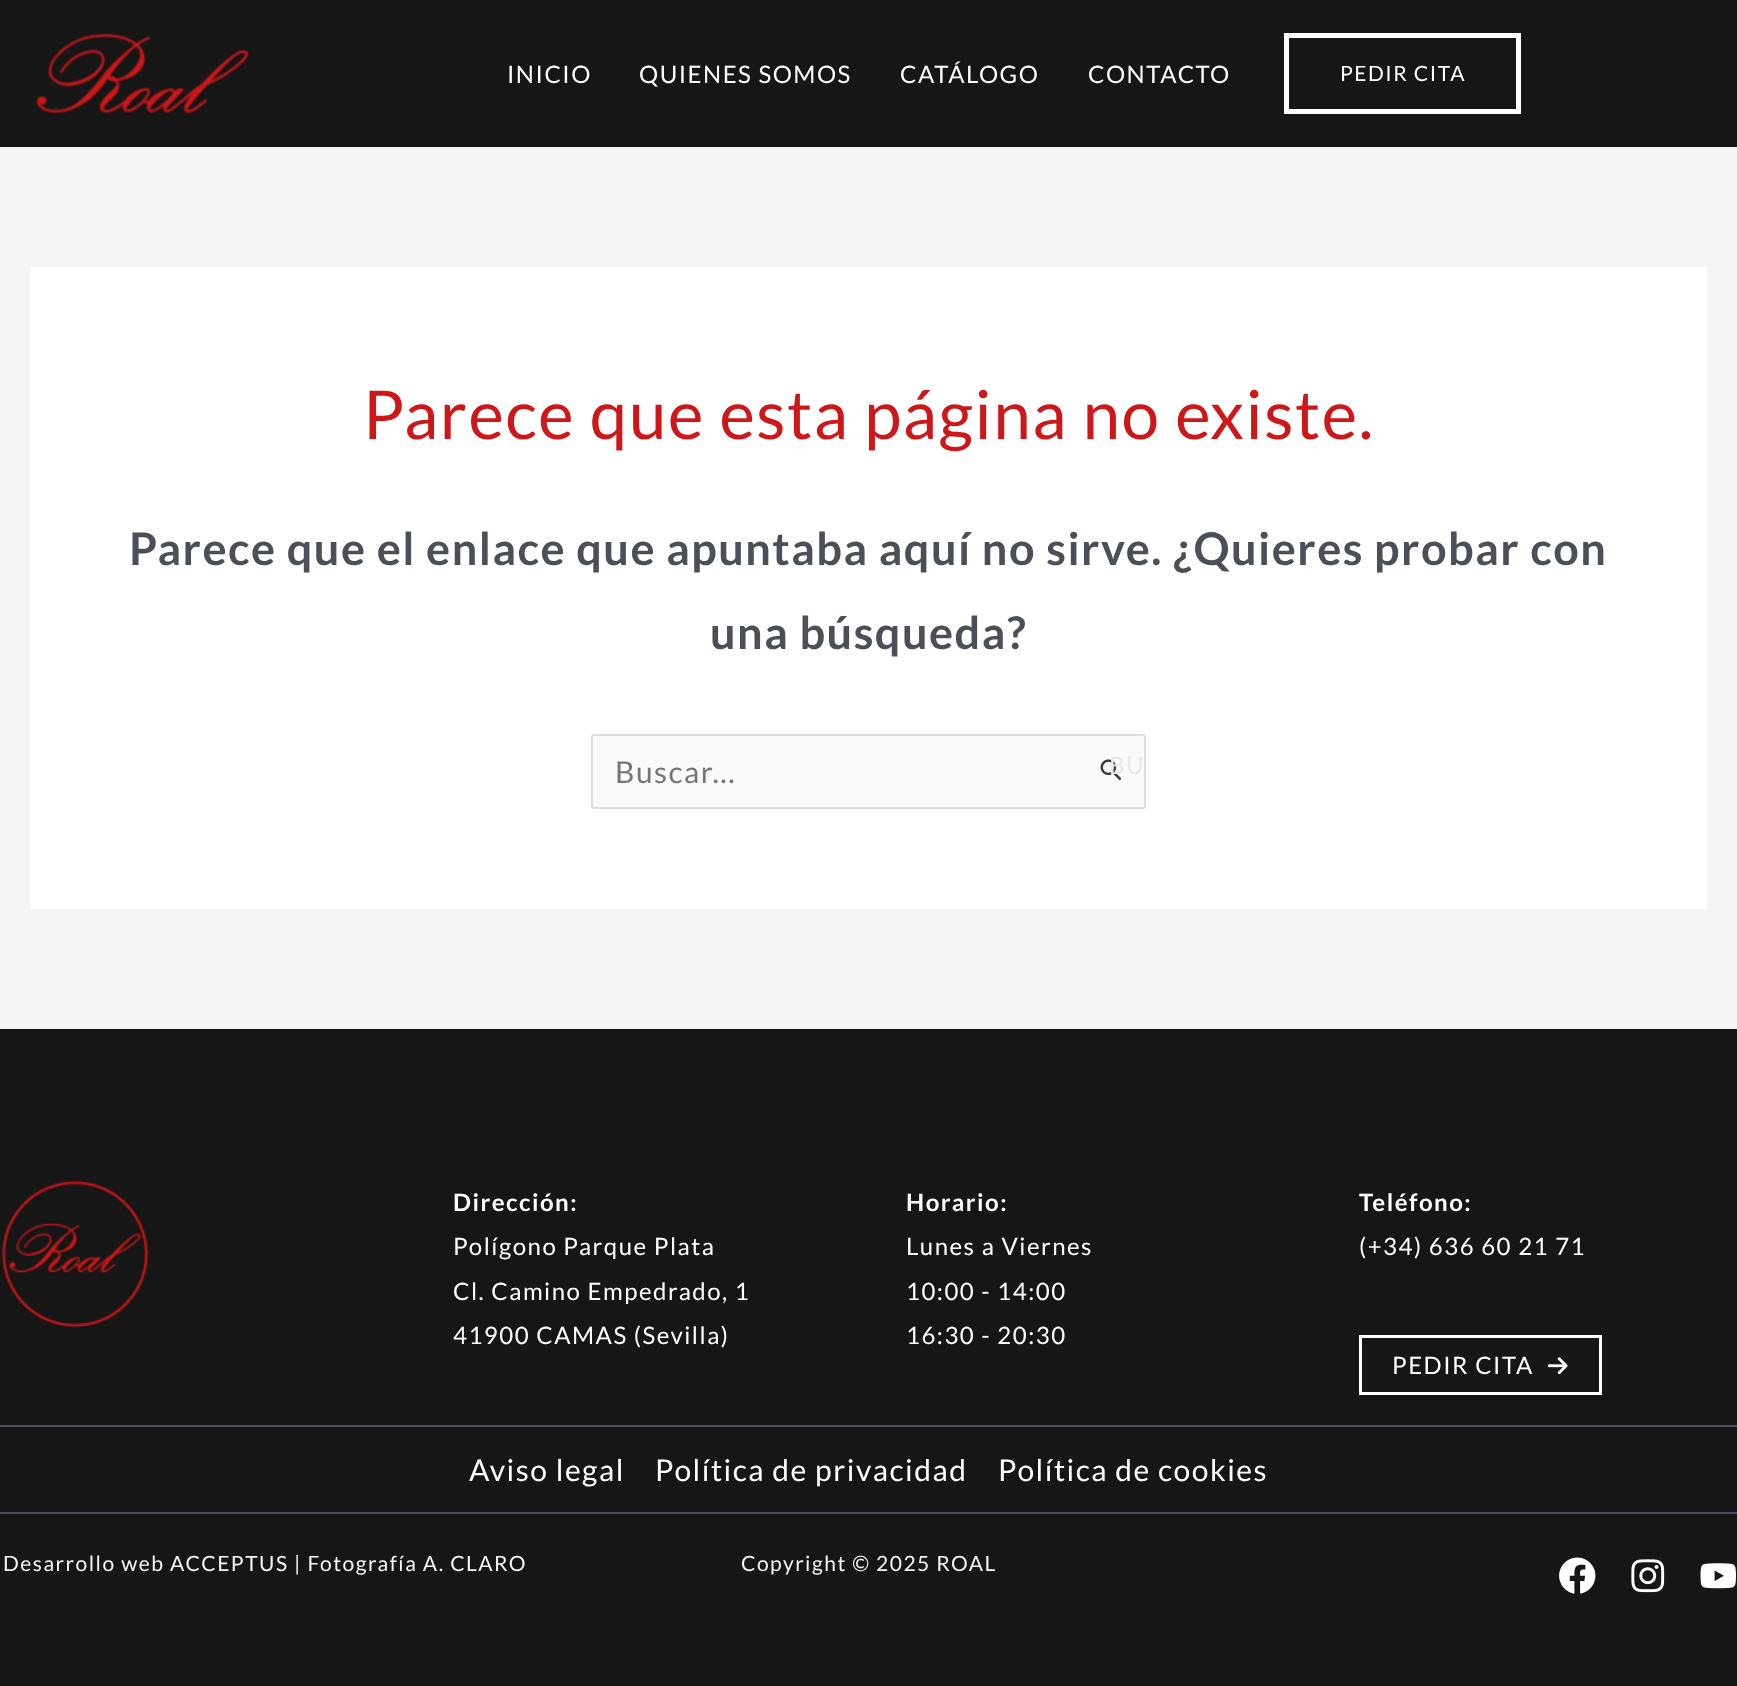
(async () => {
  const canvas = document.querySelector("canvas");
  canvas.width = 1737;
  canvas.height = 1686;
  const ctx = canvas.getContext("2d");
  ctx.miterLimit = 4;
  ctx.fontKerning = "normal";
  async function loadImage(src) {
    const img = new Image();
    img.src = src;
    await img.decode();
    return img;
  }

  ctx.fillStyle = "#f5f5f5";
  ctx.fillRect(0, 0, 1737, 1686);
  ctx.fillStyle = "#161616";
  ctx.fillRect(0, 0, 1737, 147);
  ctx.drawImage(await loadImage("img/1.png"), 35, 33, 215, 82);
  ctx.strokeStyle = "#ffffff";
  ctx.lineWidth = 5;
  ctx.strokeRect(1286.5, 35.5, 232, 76);
  ctx.fillStyle = "#ffffff";
  ctx.fillRect(30, 267, 1677, 642);
  ctx.fillStyle = "#fafafa";
  ctx.beginPath();
  ctx.roundRect(592, 735, 553, 73, 2);
  ctx.fill();
  ctx.strokeStyle = "#dddddd";
  ctx.lineWidth = 2;
  ctx.stroke();
  ctx.drawImage(await loadImage("img/2.png"), 1100, 759, 21, 22);
  ctx.fillStyle = "#161616";
  ctx.fillRect(0, 1029, 1737, 396);
  ctx.drawImage(await loadImage("img/3.png"), 1, 1180, 148, 148);
  ctx.strokeStyle = "#ffffff";
  ctx.lineWidth = 3;
  ctx.strokeRect(1360.5, 1336.5, 240, 57);
  ctx.drawImage(await loadImage("img/4.png"), 1547, 1357, 21, 18);
  for (const [x, y, w, h, color] of [
    [0, 1427, 1737, 85, "#161616"],
    [0, 1425, 1737, 2, "#4b4f58"],
    [0, 1514, 1737, 172, "#161616"],
    [0, 1512, 1737, 2, "#4b4f58"],
  ]) {
    ctx.fillStyle = color;
    ctx.fillRect(x, y, w, h);
  }
  ctx.drawImage(await loadImage("img/5.png"), 1559, 1557, 37, 37);
  ctx.drawImage(await loadImage("img/6.png"), 1631, 1559, 34, 34);
  ctx.drawImage(await loadImage("img/7.png"), 1700, 1563, 36, 26);
  ctx.letterSpacing = "1.5px";
  ctx.font = "24px Lato";
  ctx.fillStyle = "#ffffff";
  for (const [text, x, y] of [
    ["INICIO", 507, 83],
    ["QUIENES SOMOS", 639, 83],
    ["CATÁLOGO", 900, 83],
    ["CONTACTO", 1088, 83],
  ]) {
    ctx.fillText(text, x, y);
  }
  ctx.font = "21px Lato";
  ctx.fillText("PEDIR CITA", 1340, 81);
  ctx.font = "67.5px Lato";
  ctx.fillStyle = "#cd1719";
  ctx.fillText("Parece que esta página no existe.", 363, 439);
  ctx.font = "bold 45px Lato";
  ctx.fillStyle = "#4b4f58";
  ctx.fillText("Parece que el enlace que apuntaba aquí no sirve. ¿Quieres probar con", 129, 565);
  ctx.fillText("una búsqueda?", 710, 649);
  ctx.font = "30px Lato";
  ctx.fillStyle = "#757575";
  ctx.fillText("Buscar...", 615, 783);
  ctx.font = "24px Lato";
  ctx.fillStyle = "#e8e8e8";
  ctx.fillText("BU", 1109, 774);
  ctx.font = "bold 24px Lato";
  ctx.fillStyle = "#ffffff";
  ctx.fillText("Dirección:", 453, 1211);
  ctx.font = "24px Lato";
  for (const [text, x, y] of [
    ["Polígono Parque Plata", 453, 1255],
    ["Cl. Camino Empedrado, 1", 453, 1300],
    ["41900 CAMAS (Sevilla)", 453, 1344],
  ]) {
    ctx.fillText(text, x, y);
  }
  ctx.font = "bold 24px Lato";
  ctx.fillText("Horario:", 906, 1211);
  ctx.font = "24px Lato";
  for (const [text, x, y] of [
    ["Lunes a Viernes", 906, 1255],
    ["10:00 - 14:00", 906, 1300],
    ["16:30 - 20:30", 906, 1344],
  ]) {
    ctx.fillText(text, x, y);
  }
  ctx.font = "bold 24px Lato";
  ctx.fillText("Teléfono:", 1359, 1211);
  ctx.font = "24px Lato";
  ctx.fillText("(+34) 636 60 21 71", 1359, 1255);
  ctx.fillText("PEDIR CITA", 1392, 1374);
  ctx.font = "30px Lato";
  for (const [text, x, y] of [
    ["Aviso legal", 469, 1481],
    ["Política de privacidad", 655, 1481],
    ["Política de cookies", 998, 1481],
  ]) {
    ctx.fillText(text, x, y);
  }
  ctx.font = "21px Lato";
  ctx.fillStyle = "#f5f5f5";
  ctx.fillText("Desarrollo web ACCEPTUS | Fotografía A. CLARO", 3, 1571);
  ctx.fillText("Copyright © 2025 ROAL", 741, 1571);
})();
